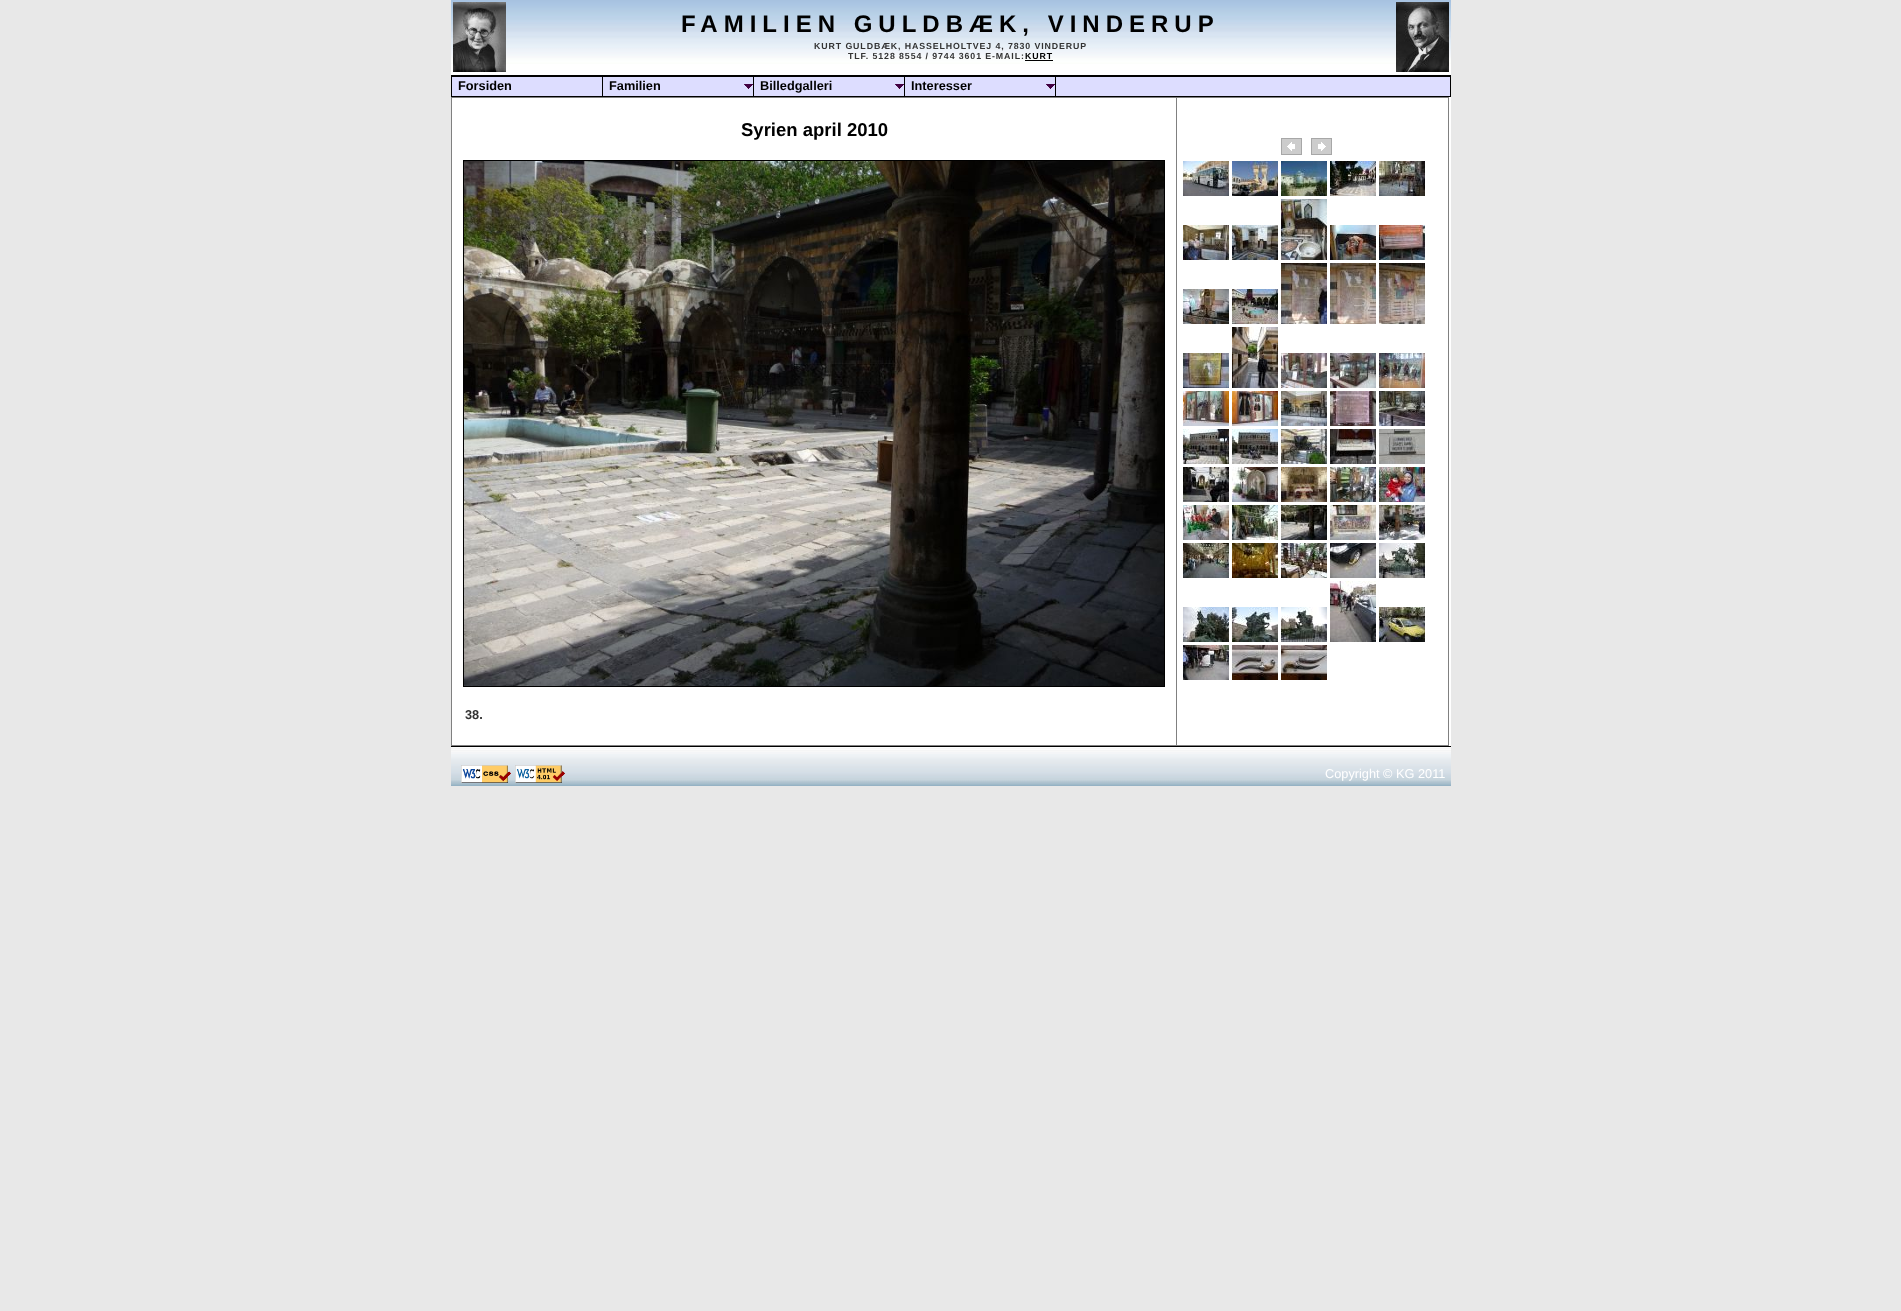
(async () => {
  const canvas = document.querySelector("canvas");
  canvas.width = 1901;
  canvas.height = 1311;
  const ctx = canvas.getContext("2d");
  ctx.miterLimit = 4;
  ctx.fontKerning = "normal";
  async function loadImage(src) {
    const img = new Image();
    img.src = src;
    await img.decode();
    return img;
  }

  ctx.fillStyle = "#e8e8e8";
  ctx.fillRect(0, 0, 1901, 1311);
  ctx.drawImage(await loadImage("img/2.png"), 451, 0, 1000, 75);
  ctx.drawImage(await loadImage("img/1.png"), 453, 2, 53, 70);
  ctx.fillStyle = "#000000";
  ctx.fillRect(1025, 60, 28, 1);
  ctx.drawImage(await loadImage("img/3.png"), 1396, 2, 53, 70);
  ctx.fillStyle = "#ffffff";
  ctx.fillRect(452, 97, 999, 649);
  ctx.fillStyle = "#ddddff";
  ctx.fillRect(452, 77, 998, 19);
  ctx.strokeStyle = "#000000";
  ctx.strokeRect(451.5, 75.5, 999, 21);
  ctx.fillStyle = "#000000";
  ctx.fillRect(452, 76, 998, 1);
  ctx.fillRect(602, 77, 1, 20);
  ctx.drawImage(await loadImage("img/4.png"), 744, 84, 9, 5);
  ctx.fillRect(753, 77, 1, 20);
  ctx.drawImage(await loadImage("img/4.png"), 895, 84, 9, 5);
  ctx.fillRect(904, 77, 1, 20);
  ctx.drawImage(await loadImage("img/4.png"), 1046, 84, 9, 5);
  for (const [x, y, w, h, color] of [
    [1055, 77, 1, 20, "#000000"],
    [451, 97, 998, 1, "#808080"],
    [1448, 97, 1, 649, "#808080"],
    [451, 745, 998, 1, "#808080"],
    [451, 97, 1, 649, "#808080"],
  ]) {
    ctx.fillStyle = color;
    ctx.fillRect(x, y, w, h);
  }
  ctx.strokeRect(463.5, 160.5, 701, 526);
  ctx.drawImage(await loadImage("img/5.png"), 464, 161, 700, 525);
  ctx.fillRect(1176, 97, 1, 649);
  ctx.drawImage(await loadImage("img/6.png"), 1281, 138, 21, 17);
  ctx.drawImage(await loadImage("img/7.png"), 1311, 138, 21, 17);
  ctx.drawImage(await loadImage("img/8.png"), 1183, 161, 46, 35);
  ctx.drawImage(await loadImage("img/9.png"), 1232, 161, 46, 35);
  ctx.drawImage(await loadImage("img/10.png"), 1281, 161, 46, 35);
  ctx.drawImage(await loadImage("img/11.png"), 1330, 161, 46, 35);
  ctx.drawImage(await loadImage("img/12.png"), 1379, 161, 46, 35);
  ctx.drawImage(await loadImage("img/13.png"), 1183, 225, 46, 35);
  ctx.drawImage(await loadImage("img/14.png"), 1232, 225, 46, 35);
  ctx.drawImage(await loadImage("img/15.png"), 1281, 199, 46, 61);
  ctx.drawImage(await loadImage("img/16.png"), 1330, 225, 46, 35);
  ctx.drawImage(await loadImage("img/17.png"), 1379, 225, 46, 35);
  ctx.drawImage(await loadImage("img/18.png"), 1183, 289, 46, 35);
  ctx.drawImage(await loadImage("img/19.png"), 1232, 289, 46, 35);
  ctx.drawImage(await loadImage("img/20.png"), 1281, 263, 46, 61);
  ctx.drawImage(await loadImage("img/21.png"), 1330, 263, 46, 61);
  ctx.drawImage(await loadImage("img/22.png"), 1379, 263, 46, 61);
  ctx.drawImage(await loadImage("img/23.png"), 1183, 353, 46, 35);
  ctx.drawImage(await loadImage("img/24.png"), 1232, 327, 46, 61);
  ctx.drawImage(await loadImage("img/25.png"), 1281, 353, 46, 35);
  ctx.drawImage(await loadImage("img/26.png"), 1330, 353, 46, 35);
  ctx.drawImage(await loadImage("img/27.png"), 1379, 353, 46, 35);
  ctx.drawImage(await loadImage("img/28.png"), 1183, 391, 46, 35);
  ctx.drawImage(await loadImage("img/29.png"), 1232, 391, 46, 35);
  ctx.drawImage(await loadImage("img/30.png"), 1281, 391, 46, 35);
  ctx.drawImage(await loadImage("img/31.png"), 1330, 391, 46, 35);
  ctx.drawImage(await loadImage("img/32.png"), 1379, 391, 46, 35);
  ctx.drawImage(await loadImage("img/33.png"), 1183, 429, 46, 35);
  ctx.drawImage(await loadImage("img/34.png"), 1232, 429, 46, 35);
  ctx.drawImage(await loadImage("img/35.png"), 1281, 429, 46, 35);
  ctx.drawImage(await loadImage("img/36.png"), 1330, 429, 46, 35);
  ctx.drawImage(await loadImage("img/37.png"), 1379, 429, 46, 35);
  ctx.drawImage(await loadImage("img/38.png"), 1183, 467, 46, 35);
  ctx.drawImage(await loadImage("img/39.png"), 1232, 467, 46, 35);
  ctx.drawImage(await loadImage("img/40.png"), 1281, 467, 46, 35);
  ctx.drawImage(await loadImage("img/41.png"), 1330, 467, 46, 35);
  ctx.drawImage(await loadImage("img/42.png"), 1379, 467, 46, 35);
  ctx.drawImage(await loadImage("img/43.png"), 1183, 505, 46, 35);
  ctx.drawImage(await loadImage("img/44.png"), 1232, 505, 46, 35);
  ctx.drawImage(await loadImage("img/45.png"), 1281, 505, 46, 35);
  ctx.drawImage(await loadImage("img/46.png"), 1330, 505, 46, 35);
  ctx.drawImage(await loadImage("img/47.png"), 1379, 505, 46, 35);
  ctx.drawImage(await loadImage("img/48.png"), 1183, 543, 46, 35);
  ctx.drawImage(await loadImage("img/49.png"), 1232, 543, 46, 35);
  ctx.drawImage(await loadImage("img/50.png"), 1281, 543, 46, 35);
  ctx.drawImage(await loadImage("img/51.png"), 1330, 543, 46, 35);
  ctx.drawImage(await loadImage("img/52.png"), 1379, 543, 46, 35);
  ctx.drawImage(await loadImage("img/53.png"), 1183, 607, 46, 35);
  ctx.drawImage(await loadImage("img/54.png"), 1232, 607, 46, 35);
  ctx.drawImage(await loadImage("img/55.png"), 1281, 607, 46, 35);
  ctx.drawImage(await loadImage("img/56.png"), 1330, 581, 46, 61);
  ctx.drawImage(await loadImage("img/57.png"), 1379, 607, 46, 35);
  ctx.drawImage(await loadImage("img/58.png"), 1183, 645, 46, 35);
  ctx.drawImage(await loadImage("img/59.png"), 1232, 645, 46, 35);
  ctx.drawImage(await loadImage("img/60.png"), 1281, 645, 46, 35);
  ctx.drawImage(await loadImage("img/63.png"), 451, 746, 1000, 40);
  ctx.drawImage(await loadImage("img/61.png"), 461, 765, 50, 18);
  ctx.drawImage(await loadImage("img/62.png"), 515, 765, 50, 18);
  ctx.letterSpacing = "6px";
  ctx.font = "bold 24px Liberation Sans";
  ctx.fillStyle = "#000000";
  ctx.fillText("FAMILIEN GULDBÆK, VINDERUP", 681, 32);
  ctx.letterSpacing = "0.9px";
  ctx.font = "bold 8.8px Liberation Sans";
  ctx.fillStyle = "#333333";
  ctx.fillText("KURT GULDBÆK, HASSELHOLTVEJ 4, 7830 VINDERUP", 814, 49);
  ctx.fillText("TLF. 5128 8554 / 9744 3601 E-MAIL:", 848, 59);
  ctx.fillStyle = "#000000";
  ctx.fillText("KURT", 1025, 59);
  ctx.letterSpacing = "0px";
  ctx.font = "bold 12.75px Liberation Sans";
  for (const [text, x, y] of [
    ["Forsiden", 458, 90],
    ["Familien", 609, 90],
    ["Billedgalleri", 760, 90],
    ["Interesser", 911, 90],
  ]) {
    ctx.fillText(text, x, y);
  }
  ctx.font = "bold 18.5px Liberation Sans";
  ctx.fillText("Syrien april 2010", 741, 136);
  ctx.font = "bold 12.75px Liberation Sans";
  ctx.fillStyle = "#333333";
  ctx.fillText("38.", 465, 719);
  ctx.font = "12.75px Liberation Sans";
  ctx.fillStyle = "#ffffff";
  ctx.fillText("Copyright © KG 2011", 1325, 778);
})();
